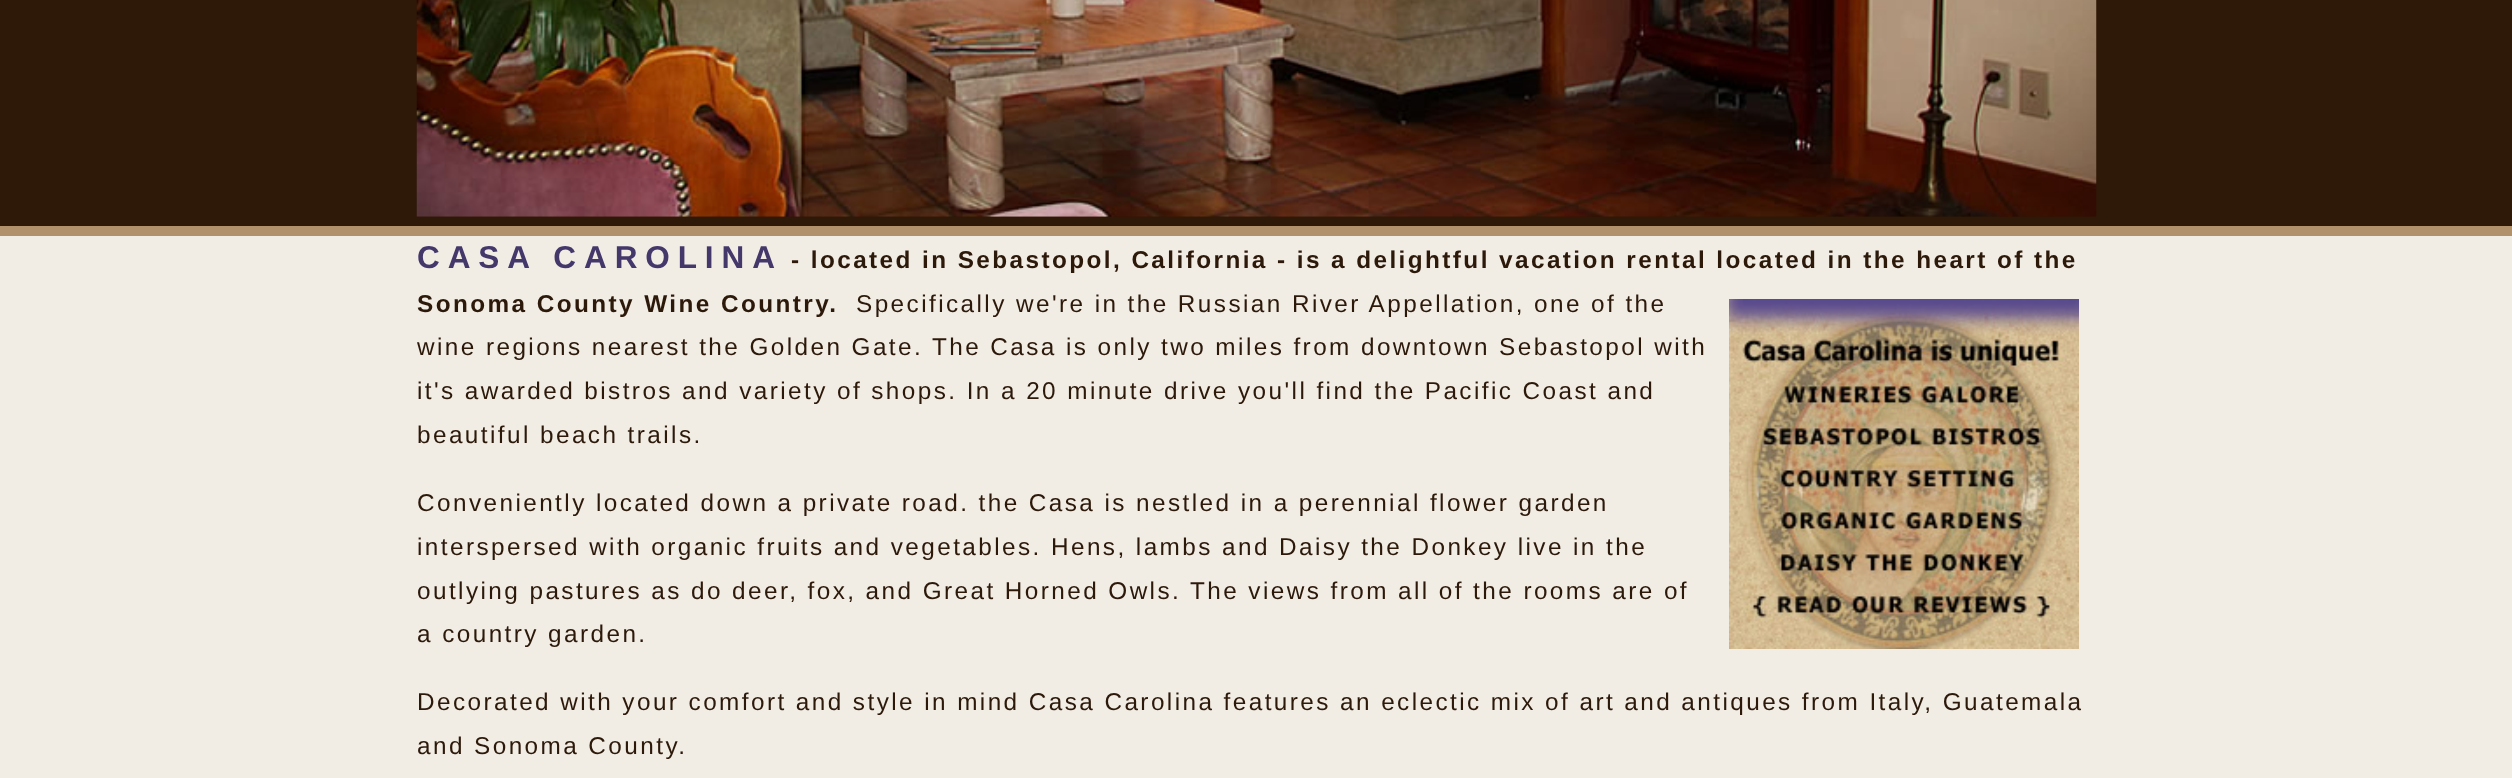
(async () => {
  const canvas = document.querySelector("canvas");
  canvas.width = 2512;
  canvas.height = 778;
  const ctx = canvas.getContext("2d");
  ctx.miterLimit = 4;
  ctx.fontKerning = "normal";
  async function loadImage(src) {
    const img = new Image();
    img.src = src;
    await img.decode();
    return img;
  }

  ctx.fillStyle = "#2e1807";
  ctx.fillRect(0, 0, 2512, 778);
  ctx.drawImage(await loadImage("img/2.png"), 417, 0, 1679, 217);
  ctx.drawImage(await loadImage("img/1.png"), 416, 0, 1681, 217);
  ctx.fillStyle = "#b0916c";
  ctx.fillRect(0, 226, 2512, 10);
  ctx.fillStyle = "#f1ece4";
  ctx.fillRect(0, 236, 2512, 542);
  ctx.drawImage(await loadImage("img/3.png"), 1729, 299, 350, 350);
  ctx.letterSpacing = "7.9px";
  ctx.font = "bold 31.5px Liberation Sans";
  ctx.fillStyle = "#44386b";
  ctx.fillText("CASA CAROLINA", 417, 268);
  ctx.letterSpacing = "2.43px";
  ctx.font = "bold 24.32px Liberation Sans";
  ctx.fillStyle = "#2c190a";
  ctx.fillText("- located in Sebastopol, California - is a delightful vacation rental located in the heart of the", 791, 268);
  ctx.fillText("Sonoma County Wine Country.", 417, 312);
  ctx.font = "24.32px Liberation Sans";
  for (const [text, x, y] of [
    ["Specifically we're in the Russian River Appellation, one of the", 856, 312],
    ["wine regions nearest the Golden Gate. The Casa is only two miles from downtown Sebastopol with", 417, 355],
    ["it's awarded bistros and variety of shops. In a 20 minute drive you'll find the Pacific Coast and", 417, 399],
    ["beautiful beach trails.", 417, 443],
    ["Conveniently located down a private road. the Casa is nestled in a perennial flower garden", 417, 511],
    ["interspersed with organic fruits and vegetables. Hens, lambs and Daisy the Donkey live in the", 417, 555],
    ["outlying pastures as do deer, fox, and Great Horned Owls. The views from all of the rooms are of", 417, 599],
    ["a country garden.", 417, 642],
    ["Decorated with your comfort and style in mind Casa Carolina features an eclectic mix of art and antiques from Italy, Guatemala", 417, 710],
    ["and Sonoma County.", 417, 754],
  ]) {
    ctx.fillText(text, x, y);
  }
})();
